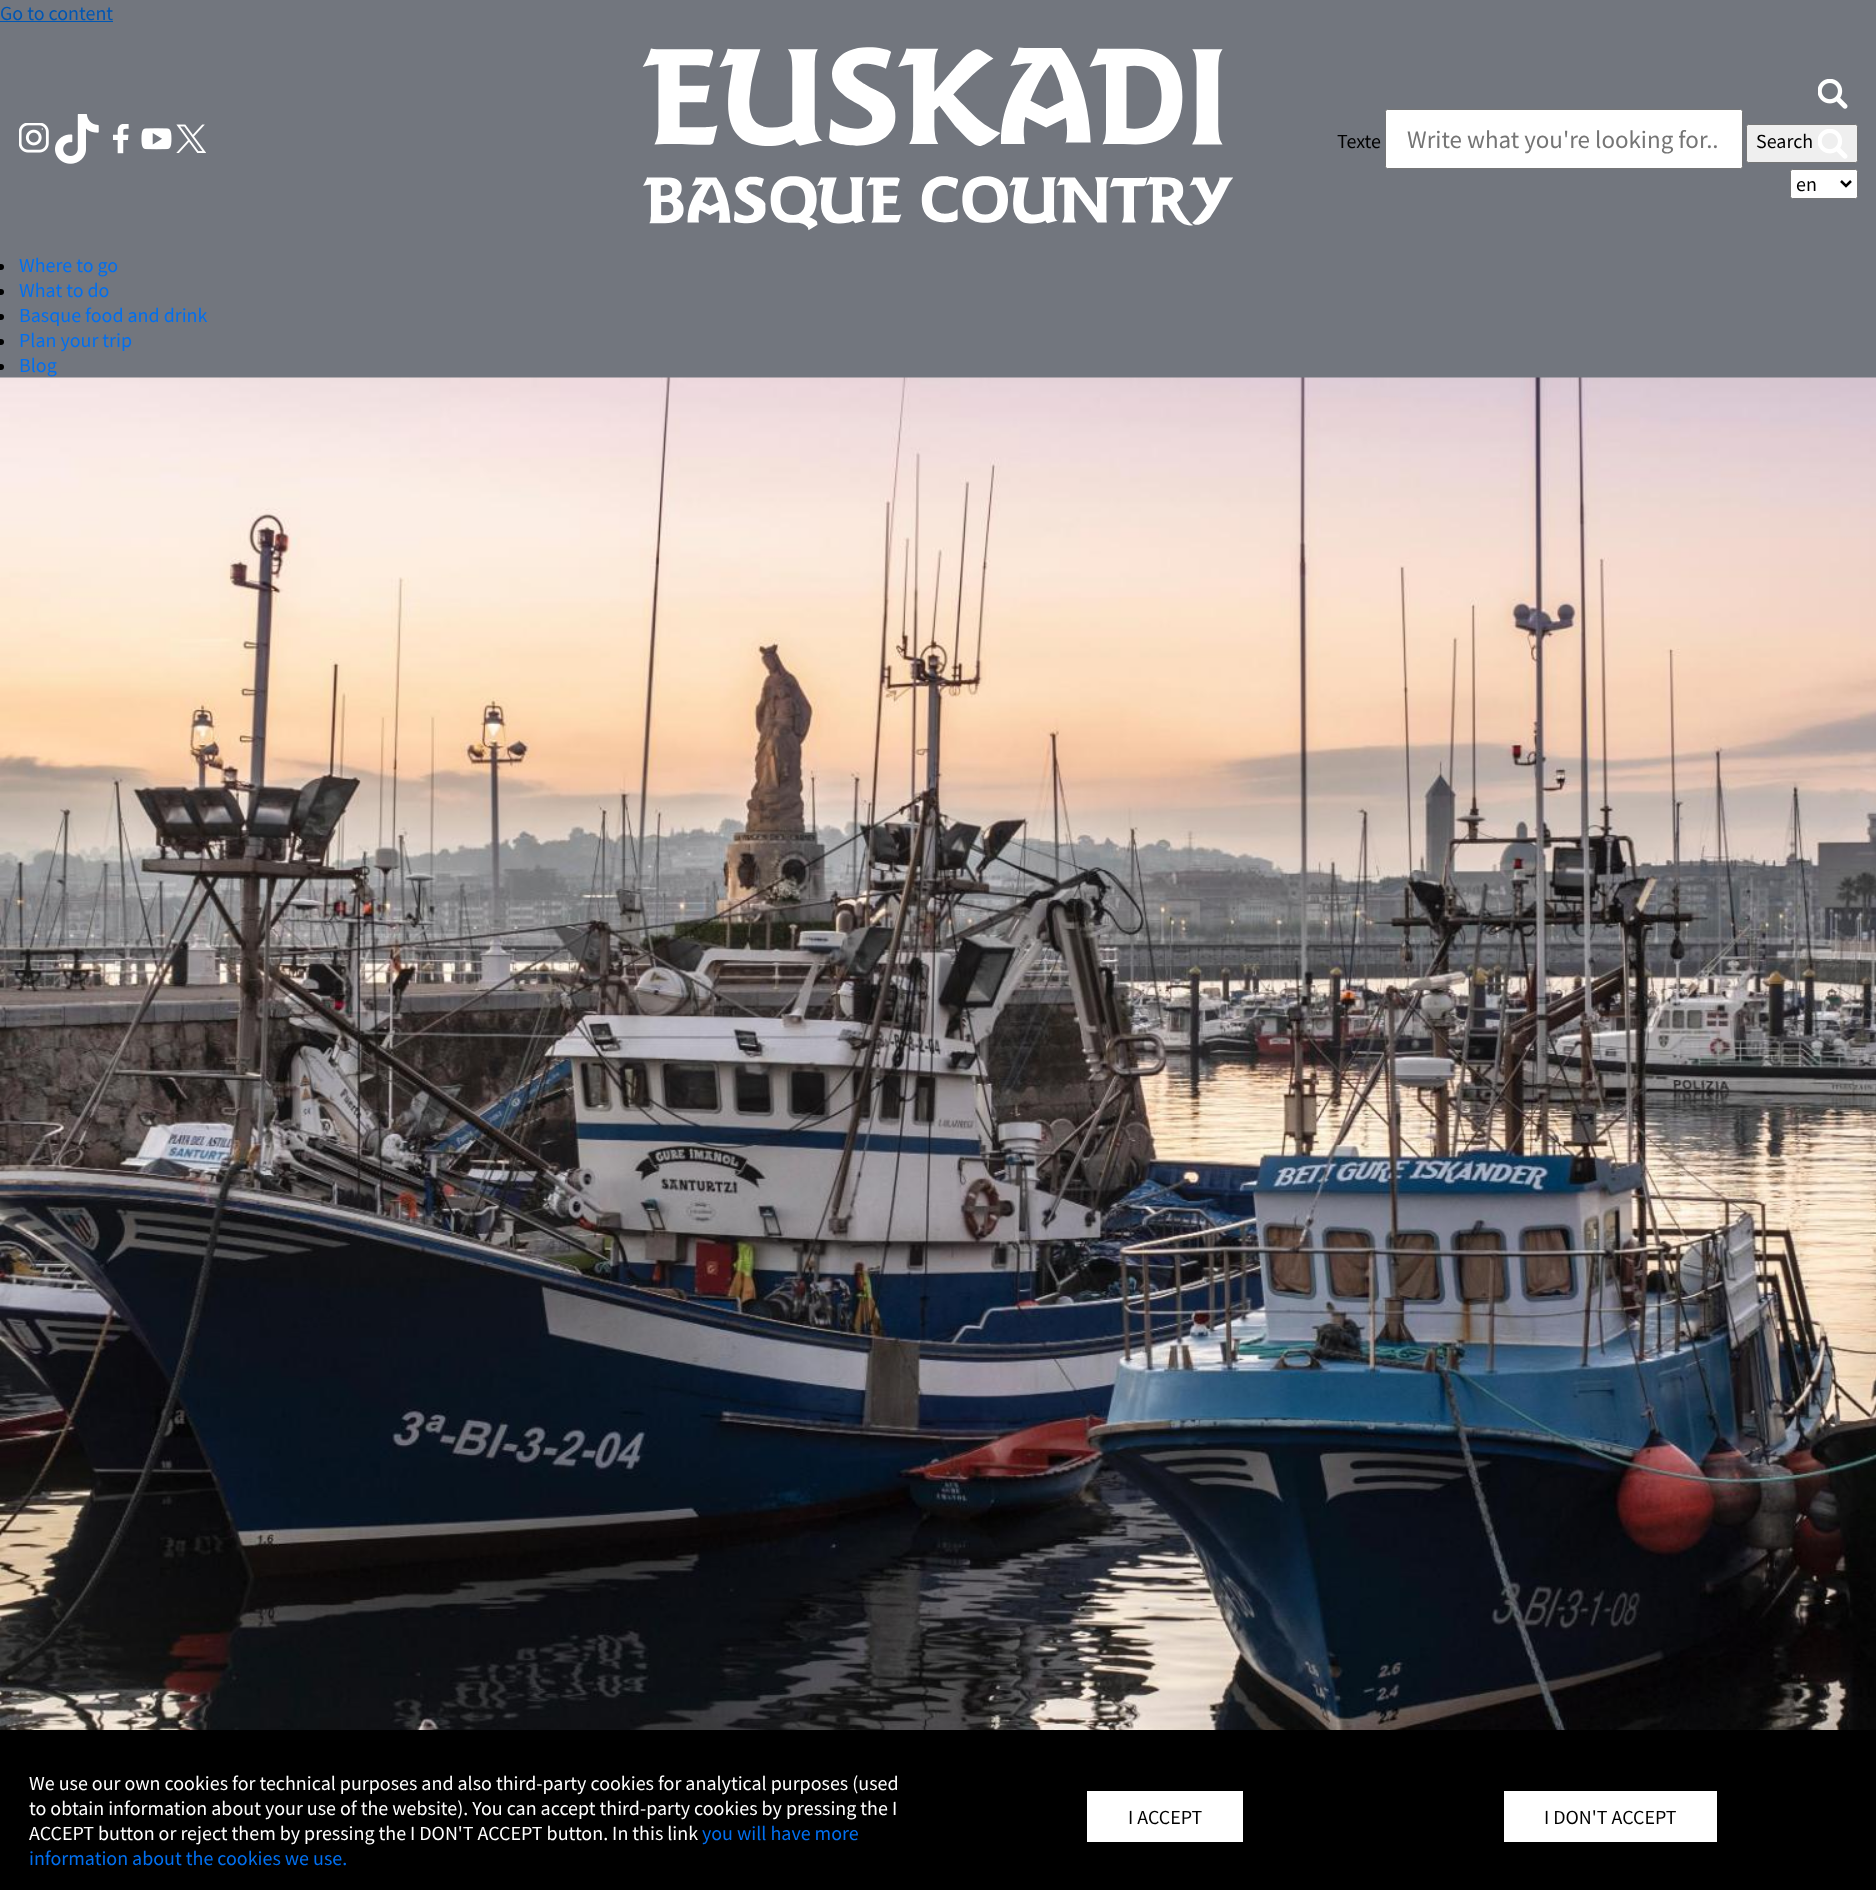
(async () => {
  const canvas = document.querySelector("canvas");
  canvas.width = 1876;
  canvas.height = 1890;
  const ctx = canvas.getContext("2d");
  ctx.miterLimit = 4;
  ctx.fontKerning = "normal";
  async function loadImage(src) {
    const img = new Image();
    img.src = src;
    await img.decode();
    return img;
  }
  let path;

  ctx.fillStyle = "#72767e";
  ctx.fillRect(0, 0, 1876, 1890);
  ctx.fillStyle = "#0056b3";
  ctx.fillRect(0, 21, 113, 1);
  ctx.drawImage(await loadImage("img/1.png"), 19, 123, 30, 30);
  ctx.drawImage(await loadImage("img/2.png"), 55, 114, 44, 50);
  ctx.drawImage(await loadImage("img/3.png"), 113, 124, 16, 30);
  ctx.drawImage(await loadImage("img/4.png"), 141, 128, 31, 22);
  ctx.drawImage(await loadImage("img/5.png"), 176, 124, 30, 29);
  ctx.drawImage(await loadImage("img/6.png"), 642, 47, 591, 184);
  ctx.drawImage(await loadImage("img/7.png"), 1818, 79, 30, 30);
  ctx.fillStyle = "#ffffff";
  ctx.beginPath();
  ctx.roundRect(1385.5, 109.5, 357, 59, 2);
  ctx.fill();
  ctx.strokeStyle = "#767676";
  ctx.stroke();
  ctx.fillStyle = "#efefef";
  ctx.beginPath();
  ctx.roundRect(1746.5, 124.5, 111, 38, 2);
  ctx.fill();
  ctx.stroke();
  ctx.drawImage(await loadImage("img/8.png"), 1818, 129, 30, 30);
  ctx.fillStyle = "#ffffff";
  ctx.beginPath();
  ctx.roundRect(1790.5, 169.5, 67, 29, 2);
  ctx.fill();
  ctx.stroke();
  path = new Path2D("M1841 181L1846 186L1851 181");
  ctx.strokeStyle = "#000000";
  ctx.lineWidth = 2.5;
  ctx.stroke(path);
  ctx.fillStyle = "#000000";
  ctx.beginPath();
  ctx.arc(1, 267, 3, 0, Math.PI * 2);
  ctx.fill();
  ctx.beginPath();
  ctx.arc(1, 292, 3, 0, Math.PI * 2);
  ctx.fill();
  ctx.beginPath();
  ctx.arc(1, 317, 3, 0, Math.PI * 2);
  ctx.fill();
  ctx.beginPath();
  ctx.arc(1, 342, 3, 0, Math.PI * 2);
  ctx.fill();
  ctx.beginPath();
  ctx.arc(1, 367, 3, 0, Math.PI * 2);
  ctx.fill();
  ctx.drawImage(await loadImage("img/9.png"), 0, 377, 1876, 1353);
  for (const [x, y, w, h, color] of [
    [0, 1730, 1876, 160, "#000000"],
    [1087, 1791, 156, 51, "#ffffff"],
    [1504, 1791, 213, 51, "#ffffff"],
  ]) {
    ctx.fillStyle = color;
    ctx.fillRect(x, y, w, h);
  }
  ctx.font = "20px Source Sans Pro";
  ctx.fillStyle = "#0056b3";
  ctx.fillText("Go to content", 0, 20);
  ctx.fillStyle = "#000000";
  ctx.fillText("Texte", 1337, 148);
  ctx.font = "25px Source Sans Pro";
  ctx.fillStyle = "#757575";
  ctx.fillText("Write what you're looking for..", 1407, 148);
  ctx.font = "20px Source Sans Pro";
  ctx.fillStyle = "#000000";
  ctx.fillText("Search", 1756, 148);
  ctx.fillText("en", 1796, 191);
  ctx.fillStyle = "#006ff0";
  for (const [text, x, y] of [
    ["Where to go", 19, 272],
    ["What to do", 19, 297],
    ["Basque food and drink", 19, 322],
    ["Plan your trip", 19, 347],
    ["Blog", 19, 372],
  ]) {
    ctx.fillText(text, x, y);
  }
  ctx.fillStyle = "#ffffff";
  for (const [text, x, y] of [
    ["We use our own cookies for technical purposes and also third-party cookies for analytical purposes (used", 29, 1790],
    ["to obtain information about your use of the website). You can accept third-party cookies by pressing the I", 29, 1815],
    ["ACCEPT button or reject them by pressing the I DON'T ACCEPT button. In this link", 29, 1840],
  ]) {
    ctx.fillText(text, x, y);
  }
  ctx.fillStyle = "#006ff0";
  ctx.fillText("you will have more", 702, 1840);
  ctx.fillText("information about the cookies we use.", 29, 1865);
  ctx.fillStyle = "#000000";
  ctx.fillText("I ACCEPT", 1128, 1824);
  ctx.fillText("I DON'T ACCEPT", 1544, 1824);
})();
